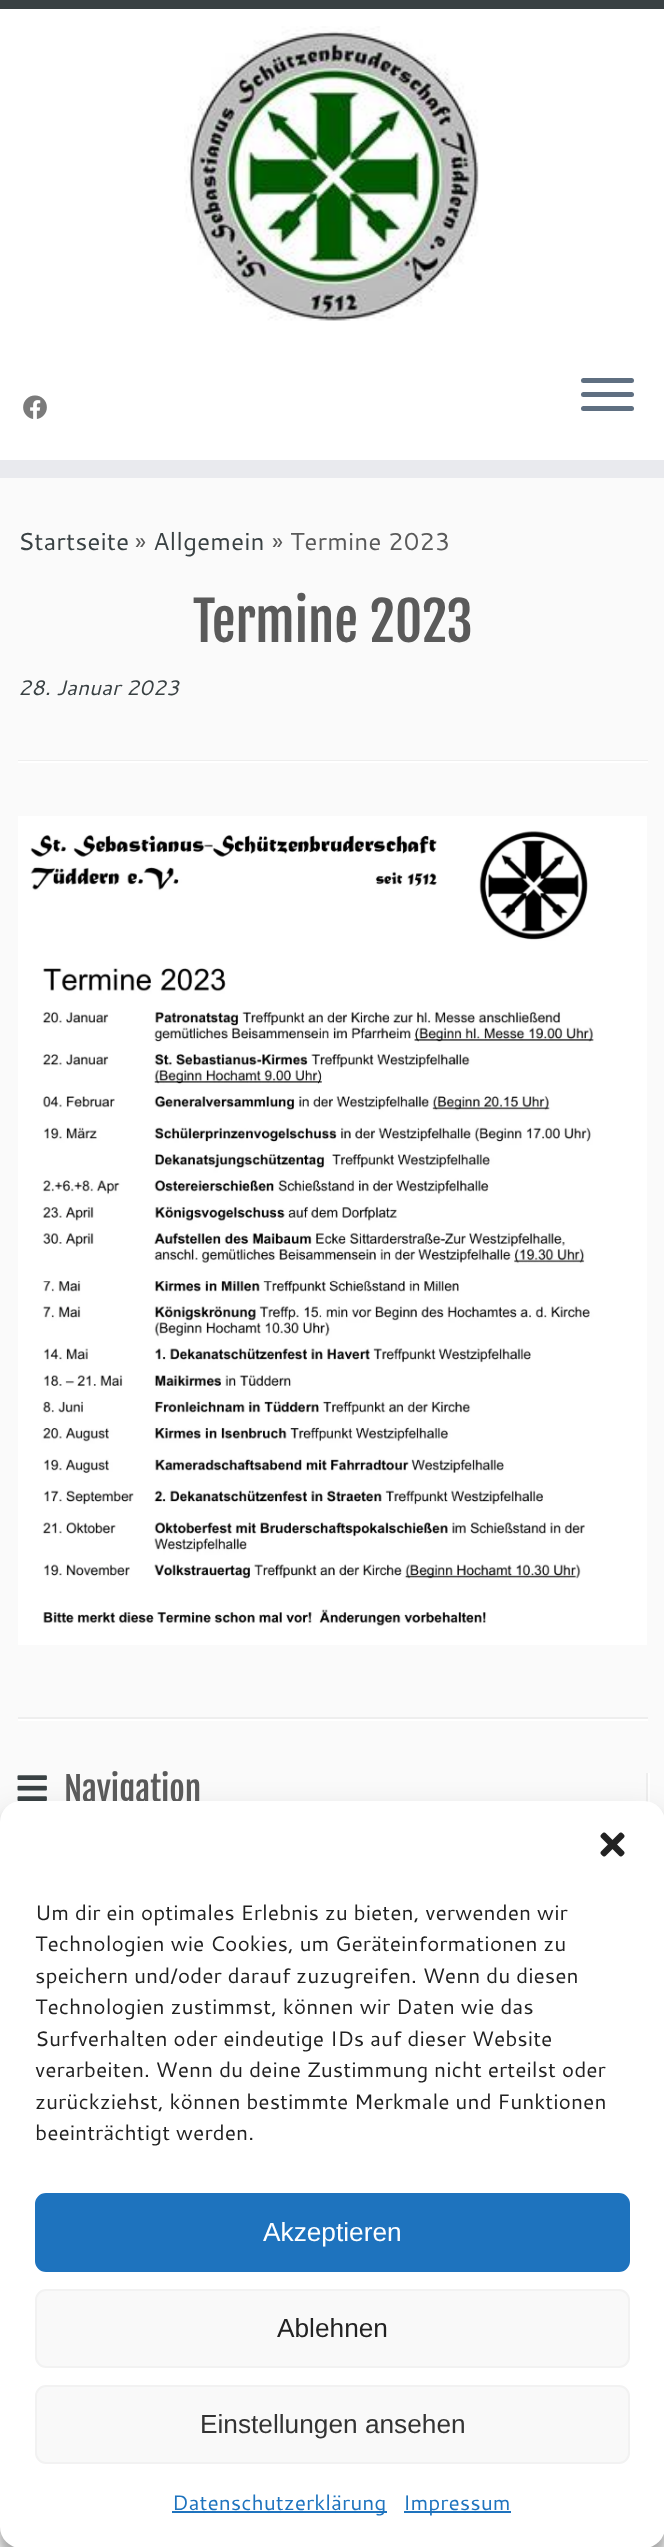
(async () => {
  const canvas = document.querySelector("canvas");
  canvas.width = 664;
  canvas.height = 2547;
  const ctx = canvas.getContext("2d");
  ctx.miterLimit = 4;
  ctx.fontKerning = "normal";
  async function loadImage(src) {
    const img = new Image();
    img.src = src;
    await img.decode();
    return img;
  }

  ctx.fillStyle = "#fafafa";
  ctx.fillRect(0, 0, 664, 2547);
  for (const [x, y, w, h, color] of [
    [0, 9, 664, 451, "#ffffff"],
    [0, 0, 664, 9, "#394143"],
    [0, 460, 664, 18, "#e9eaee"],
  ]) {
    ctx.fillStyle = color;
    ctx.fillRect(x, y, w, h);
  }
  ctx.drawImage(await loadImage("img/1.png"), 184, 26, 295, 295);
  ctx.drawImage(await loadImage("img/2.png"), 23, 395, 24, 24);
  ctx.fillStyle = "#5f6f81";
  ctx.beginPath();
  ctx.roundRect(581, 378, 53, 5, 2.5);
  ctx.fill();
  ctx.beginPath();
  ctx.roundRect(581, 392, 53, 5, 2.5);
  ctx.fill();
  ctx.beginPath();
  ctx.roundRect(581, 406, 53, 5, 2.5);
  ctx.fill();
  ctx.fillStyle = "#eeeeee";
  ctx.fillRect(18, 760, 630, 1);
  ctx.fillStyle = "#ffffff";
  ctx.fillRect(18, 761, 630, 2);
  ctx.drawImage(await loadImage("img/3.png"), 18, 816, 629, 829);
  for (const [x, y, w, h, color] of [
    [18, 1717, 630, 2, "#eeeeee"],
    [18, 1719, 630, 2, "#ffffff"],
    [646, 1773, 2, 29, "#eeeeee"],
  ]) {
    ctx.fillStyle = color;
    ctx.fillRect(x, y, w, h);
  }
  ctx.drawImage(await loadImage("img/4.png"), 17, 1775, 30, 26);
  ctx.fillStyle = "#ffffff";
  ctx.fillRect(648, 1773, 2, 29);
  ctx.fillStyle = "rgba(0, 0, 0, 0.23)";
  ctx.filter = "blur(5px)";
  ctx.beginPath();
  ctx.roundRect(0, 1811, 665, 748, 21);
  ctx.fill();
  ctx.filter = "none";
  ctx.fillStyle = "rgba(0, 0, 0, 0.19)";
  ctx.filter = "blur(17.5px)";
  ctx.beginPath();
  ctx.roundRect(0, 1818, 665, 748, 21);
  ctx.fill();
  ctx.filter = "none";
  ctx.font = "24.5px Cantarell";
  ctx.fillStyle = "#394143";
  ctx.fillText("Startseite", 18, 550);
  ctx.fillStyle = "#5a5a5a";
  ctx.fillText("»", 135, 550);
  ctx.fillStyle = "#394143";
  ctx.fillText("Allgemein", 153, 550);
  ctx.fillStyle = "#5a5a5a";
  ctx.fillText("» Termine 2023", 272, 550);
  ctx.font = "53.25px Fjalla One";
  ctx.fillText("Termine 2023", 193, 642);
  ctx.font = "italic 21px Cantarell";
  ctx.fillStyle = "#394143";
  ctx.fillText("28. Januar 2023", 18, 695);
  ctx.font = "33.5px Fjalla One";
  ctx.fillStyle = "#5a5a5a";
  ctx.fillText("Navigation", 64, 1802);
  ctx.fillStyle = "#ffffff";
  ctx.beginPath();
  ctx.roundRect(0, 1801, 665, 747, 21);
  ctx.fill();
  ctx.drawImage(await loadImage("img/5.png"), 600, 1832, 25, 25);
  ctx.font = "21px Cantarell";
  ctx.fillStyle = "#222222";
  for (const [text, x, y] of [
    ["Um dir ein optimales Erlebnis zu bieten, verwenden wir", 35, 1920],
    ["Technologien wie Cookies, um Geräteinformationen zu", 35, 1951],
    ["speichern und/oder darauf zuzugreifen. Wenn du diesen", 35, 1983],
    ["Technologien zustimmst, können wir Daten wie das", 35, 2014],
    ["Surfverhalten oder eindeutige IDs auf dieser Website", 35, 2046],
    ["verarbeiten. Wenn du deine Zustimmung nicht erteilst oder", 35, 2077],
    ["zurückziehst, können bestimmte Merkmale und Funktionen", 35, 2109],
    ["beeinträchtigt werden.", 35, 2140],
  ]) {
    ctx.fillText(text, x, y);
  }
  ctx.fillStyle = "#1e73be";
  ctx.beginPath();
  ctx.roundRect(36, 2194, 593, 77, 10);
  ctx.fill();
  ctx.strokeStyle = "#1e73be";
  ctx.lineWidth = 2;
  ctx.stroke();
  ctx.font = "26.25px Liberation Sans";
  ctx.fillStyle = "#ffffff";
  ctx.fillText("Akzeptieren", 263, 2241);
  ctx.fillStyle = "#f9f9f9";
  ctx.beginPath();
  ctx.roundRect(36, 2290, 593, 77, 10);
  ctx.fill();
  ctx.strokeStyle = "#f2f2f2";
  ctx.stroke();
  ctx.fillStyle = "#222222";
  ctx.fillText("Ablehnen", 277, 2337);
  ctx.fillStyle = "#f9f9f9";
  ctx.beginPath();
  ctx.roundRect(36, 2386, 593, 77, 10);
  ctx.fill();
  ctx.stroke();
  ctx.fillStyle = "#333333";
  ctx.fillText("Einstellungen ansehen", 200, 2433);
  ctx.fillStyle = "#1e73be";
  ctx.fillRect(172, 2511, 215, 2);
  ctx.font = "21px Cantarell";
  ctx.fillText("Datenschutzerklärung", 172, 2510);
  ctx.fillRect(404, 2511, 107, 2);
  ctx.fillText("Impressum", 403, 2510);
})();
